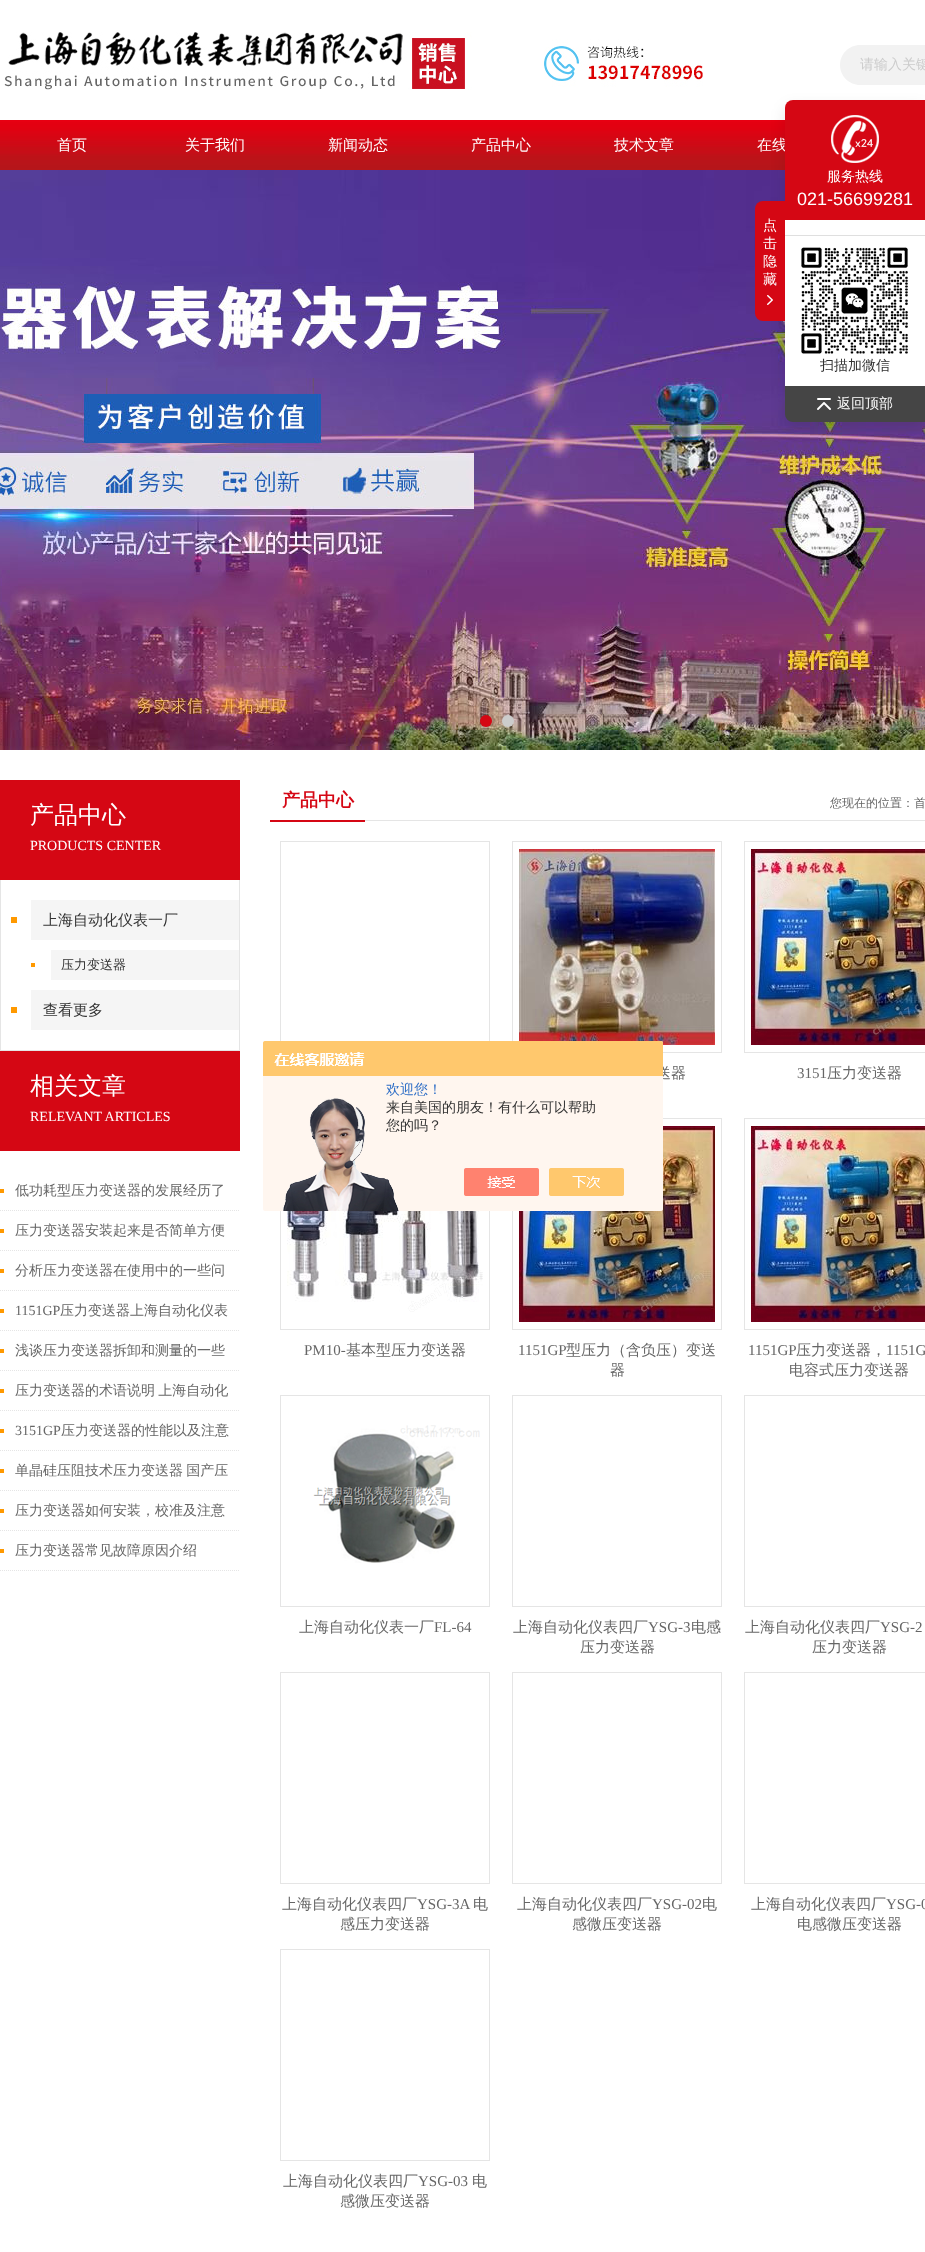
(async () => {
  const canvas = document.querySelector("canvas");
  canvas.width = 925;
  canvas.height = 2252;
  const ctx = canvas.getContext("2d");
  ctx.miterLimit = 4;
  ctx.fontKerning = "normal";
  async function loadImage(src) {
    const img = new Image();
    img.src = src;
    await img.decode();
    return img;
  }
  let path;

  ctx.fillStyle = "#ffffff";
  ctx.fillRect(0, 0, 925, 2252);
  ctx.drawImage(await loadImage("img/1.png"), 4, 32, 699, 58);
  ctx.fillStyle = "#f2f2f2";
  path = new Path2D("M860 45H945V85H860C849 85 840 76 840 65C840 54 849 45 860 45Z");
  ctx.fill(path);
  ctx.drawImage(await loadImage("img/2.png"), 0, 120, 785, 50);
  ctx.drawImage(await loadImage("img/7.png"), 0, 170, 925, 580);
  ctx.fillStyle = "rgba(0, 0, 0, 0.1)";
  ctx.filter = "blur(7.5px)";
  ctx.beginPath();
  ctx.roundRect(785, 107, 140, 322, 8);
  ctx.fill();
  ctx.filter = "none";
  ctx.fillStyle = "#d50714";
  ctx.beginPath();
  ctx.roundRect(755, 201, 30, 120, [8, 0, 0, 8]);
  ctx.fill();
  ctx.drawImage(await loadImage("img/4.png"), 767, 295, 6, 10);
  ctx.fillStyle = "#ffffff";
  ctx.fillRect(785, 220, 140, 166);
  ctx.fillStyle = "#dfdfdf";
  ctx.fillRect(785, 235, 140, 1);
  ctx.drawImage(await loadImage("img/5.png"), 801, 247, 107, 107);
  ctx.fillStyle = "#454545";
  ctx.beginPath();
  ctx.roundRect(785, 386, 140, 36, [0, 0, 0, 8]);
  ctx.fill();
  ctx.drawImage(await loadImage("img/6.png"), 817, 398, 14, 12);
  ctx.fillStyle = "#d50714";
  ctx.beginPath();
  ctx.arc(486, 721, 6, 0, Math.PI * 2);
  ctx.fill();
  ctx.fillStyle = "#cccccc";
  ctx.beginPath();
  ctx.arc(508, 721, 6, 0, Math.PI * 2);
  ctx.fill();
  for (const [x, y, w, h, color] of [
    [0, 780, 240, 100, "#d50714"],
    [239, 880, 1, 171, "#e5e5e5"],
    [0, 1050, 240, 1, "#e5e5e5"],
    [0, 880, 1, 171, "#e5e5e5"],
    [11, 917, 6, 6, "#ff9900"],
    [31, 900, 208, 40, "#f5f5f5"],
    [31, 963, 4, 4, "#ff9900"],
    [51, 950, 188, 30, "#f5f5f5"],
    [11, 1007, 6, 6, "#ff9900"],
    [31, 990, 208, 40, "#f5f5f5"],
    [0, 1051, 240, 100, "#d50714"],
    [0, 1189, 4, 4, "#ff9900"],
  ]) {
    ctx.fillStyle = color;
    ctx.fillRect(x, y, w, h);
  }
  path = new Path2D("M0 1210.5H240");
  ctx.strokeStyle = "#e5e5e5";
  ctx.setLineDash([1, 1]);
  ctx.stroke(path);
  ctx.fillRect(0, 1229, 4, 4);
  path = new Path2D("M0 1250.5H240");
  ctx.stroke(path);
  ctx.fillRect(0, 1269, 4, 4);
  path = new Path2D("M0 1290.5H240");
  ctx.stroke(path);
  ctx.fillRect(0, 1309, 4, 4);
  path = new Path2D("M0 1330.5H240");
  ctx.stroke(path);
  ctx.fillRect(0, 1349, 4, 4);
  path = new Path2D("M0 1370.5H240");
  ctx.stroke(path);
  ctx.fillRect(0, 1389, 4, 4);
  path = new Path2D("M0 1410.5H240");
  ctx.stroke(path);
  ctx.fillRect(0, 1429, 4, 4);
  path = new Path2D("M0 1450.5H240");
  ctx.stroke(path);
  ctx.fillRect(0, 1469, 4, 4);
  path = new Path2D("M0 1490.5H240");
  ctx.stroke(path);
  ctx.fillRect(0, 1509, 4, 4);
  path = new Path2D("M0 1530.5H240");
  ctx.stroke(path);
  ctx.fillRect(0, 1549, 4, 4);
  path = new Path2D("M0 1570.5H240");
  ctx.stroke(path);
  ctx.fillStyle = "#e5e5e5";
  ctx.fillRect(365, 820, 560, 1);
  ctx.fillStyle = "#d50714";
  ctx.fillRect(270, 820, 95, 2);
  ctx.setLineDash([]);
  ctx.strokeRect(280.5, 841.5, 209, 211);
  ctx.strokeRect(512.5, 841.5, 209, 211);
  ctx.drawImage(await loadImage("img/8.png"), 519, 849, 196, 196);
  ctx.strokeRect(744.5, 841.5, 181, 211);
  ctx.drawImage(await loadImage("img/9.png"), 751, 849, 174, 196);
  ctx.strokeRect(280.5, 1118.5, 209, 211);
  ctx.drawImage(await loadImage("img/10.png"), 287, 1211, 196, 101);
  ctx.strokeRect(512.5, 1118.5, 209, 211);
  ctx.drawImage(await loadImage("img/11.png"), 519, 1126, 196, 196);
  ctx.strokeRect(744.5, 1118.5, 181, 211);
  ctx.drawImage(await loadImage("img/9.png"), 751, 1126, 174, 196);
  ctx.strokeRect(280.5, 1395.5, 209, 211);
  ctx.drawImage(await loadImage("img/12.png"), 313, 1425, 167, 138);
  ctx.strokeRect(512.5, 1395.5, 209, 211);
  ctx.strokeRect(744.5, 1395.5, 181, 211);
  ctx.strokeRect(280.5, 1672.5, 209, 211);
  ctx.strokeRect(512.5, 1672.5, 209, 211);
  ctx.strokeRect(744.5, 1672.5, 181, 211);
  ctx.strokeRect(280.5, 1949.5, 209, 211);
  ctx.font = "500 14px WenQuanYi Zen Hei";
  ctx.fillStyle = "#cccccc";
  ctx.fillText("请输入关键", 860, 69);
  ctx.font = "500 15px WenQuanYi Zen Hei";
  ctx.fillStyle = "#ffffff";
  for (const [text, x, y] of [
    ["首页", 57, 150],
    ["关于我们", 185, 150],
    ["新闻动态", 328, 150],
    ["产品中心", 471, 150],
    ["技术文章", 614, 150],
    ["在线", 757, 150],
  ]) {
    ctx.fillText(text, x, y);
  }
  ctx.fillStyle = "#d50714";
  ctx.beginPath();
  ctx.roundRect(785, 100, 140, 120, [8, 0, 0, 0]);
  ctx.fill();
  ctx.drawImage(await loadImage("img/3.png"), 831, 115, 48, 48);
  ctx.font = "500 14px WenQuanYi Zen Hei";
  ctx.fillStyle = "#ffffff";
  ctx.fillText("服务热线", 827, 181);
  ctx.font = "18px Liberation Sans";
  ctx.fillText("021-56699281", 797, 205);
  ctx.font = "500 14px WenQuanYi Zen Hei";
  for (const [text, x, y] of [
    ["点", 763, 230],
    ["击", 763, 248],
    ["隐", 763, 266],
    ["藏", 763, 284],
  ]) {
    ctx.fillText(text, x, y);
  }
  ctx.fillStyle = "#333333";
  ctx.fillText("扫描加微信", 820, 370);
  ctx.fillStyle = "#ffffff";
  ctx.fillText("返回顶部", 837, 408);
  ctx.font = "500 24px WenQuanYi Zen Hei";
  ctx.fillText("产品中心", 30, 823);
  ctx.font = "14px Liberation Serif";
  ctx.fillText("PRODUCTS CENTER", 30, 850);
  ctx.font = "500 15px WenQuanYi Zen Hei";
  ctx.fillStyle = "#333333";
  ctx.fillText("上海自动化仪表一厂", 43, 925);
  ctx.font = "500 13px WenQuanYi Zen Hei";
  ctx.fillText("压力变送器", 61, 969);
  ctx.font = "500 15px WenQuanYi Zen Hei";
  ctx.fillText("查看更多", 43, 1015);
  ctx.font = "500 24px WenQuanYi Zen Hei";
  ctx.fillStyle = "#ffffff";
  ctx.fillText("相关文章", 30, 1094);
  ctx.font = "14px Liberation Serif";
  ctx.fillText("RELEVANT ARTICLES", 30, 1121);
  ctx.font = "500 14px WenQuanYi Zen Hei";
  ctx.fillStyle = "#666666";
  for (const [text, x, y] of [
    ["低功耗型压力变送器的发展经历了", 15, 1195],
    ["压力变送器安装起来是否简单方便", 15, 1235],
    ["分析压力变送器在使用中的一些问", 15, 1275],
  ]) {
    ctx.fillText(text, x, y);
  }
  ctx.font = "14px Liberation Serif";
  ctx.fillText("1151GP", 15, 1315);
  ctx.font = "500 14px WenQuanYi Zen Hei";
  ctx.fillText("压力变送器上海自动化仪表", 60, 1315);
  ctx.fillText("浅谈压力变送器拆卸和测量的一些", 15, 1355);
  ctx.wordSpacing = "-1px";
  ctx.fillText("压力变送器的术语说明 上海自动化", 15, 1395);
  ctx.wordSpacing = "0px";
  ctx.font = "14px Liberation Serif";
  ctx.fillText("3151GP", 15, 1435);
  ctx.font = "500 14px WenQuanYi Zen Hei";
  ctx.fillText("压力变送器的性能以及注意", 61, 1435);
  ctx.wordSpacing = "-1px";
  ctx.fillText("单晶硅压阻技术压力变送器 国产压", 15, 1475);
  ctx.wordSpacing = "0px";
  ctx.fillText("压力变送器如何安装，校准及注意", 15, 1515);
  ctx.fillText("压力变送器常见故障原因介绍", 15, 1555);
  ctx.font = "bold 18px WenQuanYi Zen Hei";
  ctx.fillStyle = "#d50714";
  ctx.fillText("产品中心", 282, 806);
  ctx.font = "500 12px WenQuanYi Zen Hei";
  ctx.fillStyle = "#666666";
  ctx.fillText("您现在的位置：首", 830, 807);
  ctx.font = "500 15px WenQuanYi Zen Hei";
  ctx.fillText("送器", 656, 1078);
  ctx.font = "15px Liberation Serif";
  ctx.fillText("3151", 797, 1078);
  ctx.font = "500 15px WenQuanYi Zen Hei";
  ctx.fillText("压力变送器", 827, 1078);
  ctx.font = "15px Liberation Serif";
  ctx.fillText("PM10-", 304, 1355);
  ctx.font = "500 15px WenQuanYi Zen Hei";
  ctx.fillText("基本型压力变送器", 346, 1355);
  ctx.font = "15px Liberation Serif";
  ctx.fillText("1151GP", 518, 1355);
  ctx.font = "500 15px WenQuanYi Zen Hei";
  ctx.fillText("型压力（含负压）变送", 566, 1355);
  ctx.fillText("器", 610, 1375);
  ctx.font = "15px Liberation Serif";
  ctx.fillText("1151GP", 748, 1355);
  ctx.font = "500 15px WenQuanYi Zen Hei";
  ctx.fillText("压力变送器，", 796, 1355);
  ctx.font = "15px Liberation Serif";
  ctx.fillText("1151G", 886, 1355);
  ctx.font = "500 15px WenQuanYi Zen Hei";
  ctx.fillText("电容式压力变送器", 789, 1375);
  ctx.fillText("上海自动化仪表一厂", 299, 1632);
  ctx.font = "15px Liberation Serif";
  ctx.fillText("FL-64", 434, 1632);
  ctx.font = "500 15px WenQuanYi Zen Hei";
  ctx.fillText("上海自动化仪表四厂", 513, 1632);
  ctx.font = "15px Liberation Serif";
  ctx.fillText("YSG-3", 648, 1632);
  ctx.font = "500 15px WenQuanYi Zen Hei";
  for (const [text, x, y] of [
    ["电感", 691, 1632],
    ["压力变送器", 580, 1652],
    ["上海自动化仪表四厂", 745, 1632],
  ]) {
    ctx.fillText(text, x, y);
  }
  ctx.font = "15px Liberation Serif";
  ctx.fillText("YSG-2", 880, 1632);
  ctx.font = "500 15px WenQuanYi Zen Hei";
  ctx.fillText("压力变送器", 812, 1652);
  ctx.fillText("上海自动化仪表四厂", 282, 1909);
  ctx.font = "15px Liberation Serif";
  ctx.fillText("YSG-3A", 417, 1909);
  ctx.font = "500 15px WenQuanYi Zen Hei";
  for (const [text, x, y] of [
    ["电", 473, 1909],
    ["感压力变送器", 340, 1929],
    ["上海自动化仪表四厂", 517, 1909],
  ]) {
    ctx.fillText(text, x, y);
  }
  ctx.font = "15px Liberation Serif";
  ctx.fillText("YSG-02", 652, 1909);
  ctx.font = "500 15px WenQuanYi Zen Hei";
  for (const [text, x, y] of [
    ["电", 702, 1909],
    ["感微压变送器", 572, 1929],
    ["上海自动化仪表四厂", 751, 1909],
  ]) {
    ctx.fillText(text, x, y);
  }
  ctx.font = "15px Liberation Serif";
  ctx.fillText("YSG-0", 886, 1909);
  ctx.font = "500 15px WenQuanYi Zen Hei";
  ctx.fillText("电感微压变送器", 797, 1929);
  ctx.fillText("上海自动化仪表四厂", 283, 2186);
  ctx.font = "15px Liberation Serif";
  ctx.fillText("YSG-03", 418, 2186);
  ctx.font = "500 15px WenQuanYi Zen Hei";
  ctx.fillText("电", 472, 2186);
  ctx.fillText("感微压变送器", 340, 2206);
  ctx.drawImage(await loadImage("img/13.png"), 263, 1041, 400, 170);
  ctx.font = "500 14px WenQuanYi Zen Hei";
  ctx.fillStyle = "#2e6ec6";
  ctx.fillText("欢迎您！", 386, 1094);
  ctx.fillStyle = "#333333";
  ctx.fillText("来自美国的朋友！有什么可以帮助", 386, 1112);
  ctx.fillText("您的吗？", 386, 1130);
})();
